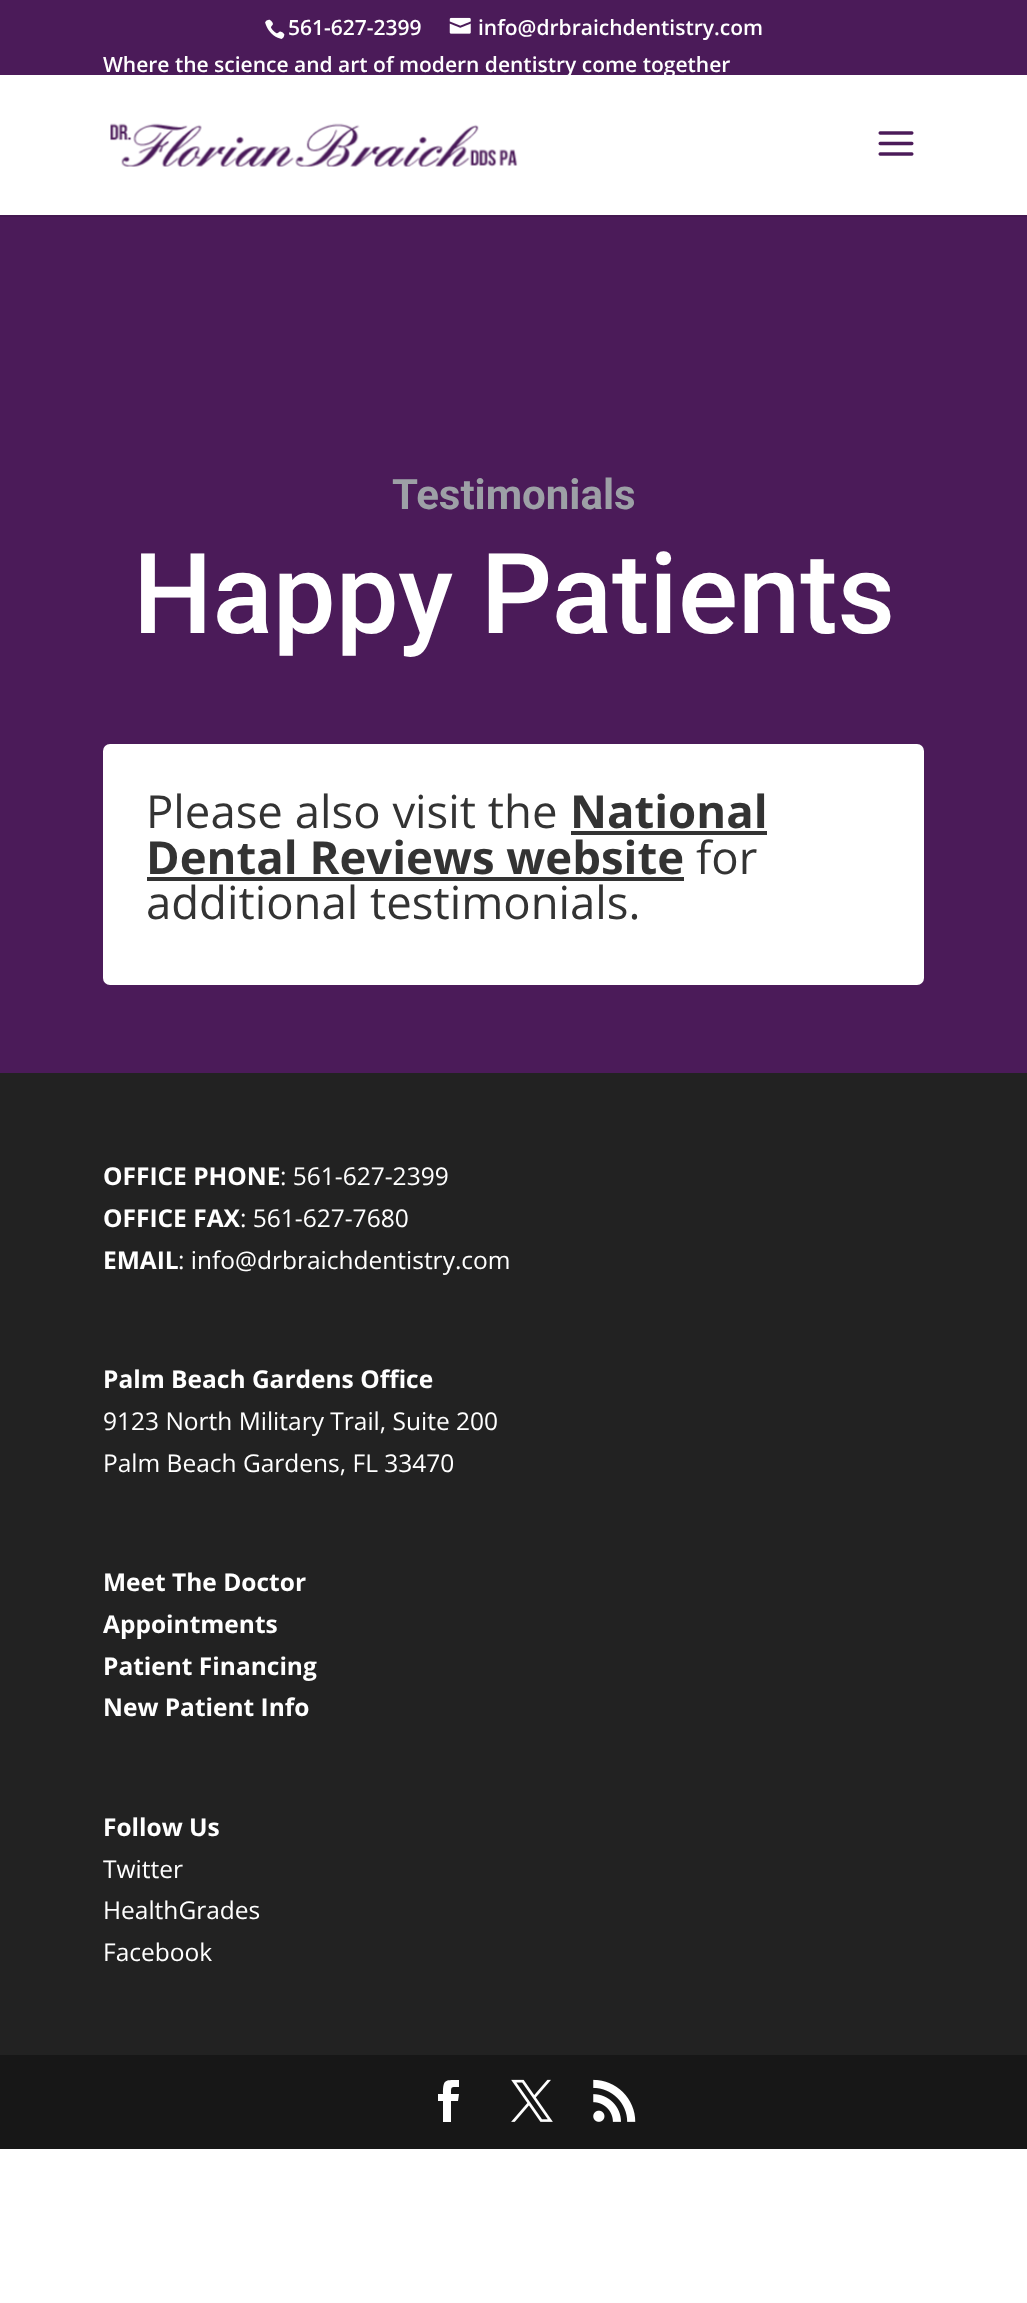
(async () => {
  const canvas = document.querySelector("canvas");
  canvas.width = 1027;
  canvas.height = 2303;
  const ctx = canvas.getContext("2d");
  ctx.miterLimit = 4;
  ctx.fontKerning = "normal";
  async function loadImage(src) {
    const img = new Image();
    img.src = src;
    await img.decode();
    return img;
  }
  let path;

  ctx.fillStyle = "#ffffff";
  ctx.fillRect(0, 0, 1027, 2303);
  ctx.fillStyle = "#4b1b59";
  ctx.fillRect(0, 0, 1027, 75);
  ctx.drawImage(await loadImage("img/1.png"), 265, 19, 20, 20);
  ctx.drawImage(await loadImage("img/2.png"), 449, 17, 22, 17);
  ctx.fillStyle = "#441850";
  ctx.fillRect(0, 215, 1027, 2);
  ctx.drawImage(await loadImage("img/3.png"), 110, 123, 408, 44);
  ctx.drawImage(await loadImage("img/4.png"), 878, 131, 36, 25);
  ctx.fillStyle = "#4b1b59";
  ctx.fillRect(0, 217, 1027, 856);
  ctx.fillStyle = "#ffffff";
  ctx.beginPath();
  ctx.roundRect(103, 744, 821, 241, 7);
  ctx.fill();
  for (const [x, y, w, h, color] of [
    [571, 831, 196, 4, "#333333"],
    [147, 877, 537, 4, "#333333"],
    [0, 1073, 1027, 982, "#222222"],
    [0, 2055, 1027, 94, "#171717"],
  ]) {
    ctx.fillStyle = color;
    ctx.fillRect(x, y, w, h);
  }
  ctx.fillStyle = "#ffffff";
  path = new Path2D("M443 2122H451V2101H458L459 2094H451C451 2086 451 2087 459 2087V2080C445 2080 443 2079 443 2094H438V2101H443Z");
  ctx.fill(path);
  ctx.drawImage(await loadImage("img/5.png"), 511, 2079, 42, 43);
  ctx.drawImage(await loadImage("img/6.png"), 593, 2079, 43, 43);
  ctx.font = "600 21px Open Sans";
  for (const [text, x, y] of [
    ["561-627-2399", 288, 35],
    ["info@drbraichdentistry.com", 478, 35],
    ["Where the science and art of modern dentistry come together", 103, 72],
  ]) {
    ctx.fillText(text, x, y);
  }
  ctx.font = "bold 42px Roboto";
  ctx.fillStyle = "#9da0a6";
  ctx.fillText("Testimonials", 392, 509);
  ctx.font = "500 112px Roboto";
  ctx.fillStyle = "#ffffff";
  ctx.fillText("Happy Patients", 133, 633);
  ctx.font = "45.5px Open Sans";
  ctx.fillStyle = "#333333";
  ctx.fillText("Please also visit the", 146, 828);
  ctx.font = "bold 45.5px Open Sans";
  ctx.fillText("National", 570, 828);
  ctx.fillText("Dental Reviews website", 146, 874);
  ctx.font = "45.5px Open Sans";
  ctx.fillText("for", 696, 874);
  ctx.fillText("additional testimonials.", 146, 919);
  ctx.font = "bold 24.5px Open Sans";
  ctx.fillStyle = "#ffffff";
  ctx.fillText("OFFICE PHONE", 103, 1185);
  ctx.font = "24.5px Open Sans";
  ctx.fillText(": 561-627-2399", 280, 1185);
  ctx.font = "bold 24.5px Open Sans";
  ctx.fillText("OFFICE FAX", 103, 1227);
  ctx.font = "24.5px Open Sans";
  ctx.fillText(": 561-627-7680", 240, 1227);
  ctx.font = "bold 24.5px Open Sans";
  ctx.fillText("EMAIL", 103, 1269);
  ctx.font = "24.5px Open Sans";
  ctx.fillText(": info@drbraichdentistry.com", 178, 1269);
  ctx.font = "bold 24.5px Open Sans";
  ctx.fillText("Palm Beach Gardens Office", 103, 1388);
  ctx.font = "24.5px Open Sans";
  ctx.fillText("9123 North Military Trail, Suite 200", 103, 1430);
  ctx.fillText("Palm Beach Gardens, FL 33470", 103, 1472);
  ctx.font = "bold 24.5px Open Sans";
  for (const [text, x, y] of [
    ["Meet The Doctor", 103, 1591],
    ["Appointments", 103, 1633],
    ["Patient Financing", 103, 1675],
    ["New Patient Info", 103, 1716],
    ["Follow Us", 103, 1836],
  ]) {
    ctx.fillText(text, x, y);
  }
  ctx.font = "24.5px Open Sans";
  for (const [text, x, y] of [
    ["Twitter", 103, 1878],
    ["HealthGrades", 103, 1919],
    ["Facebook", 103, 1961],
  ]) {
    ctx.fillText(text, x, y);
  }
})();
